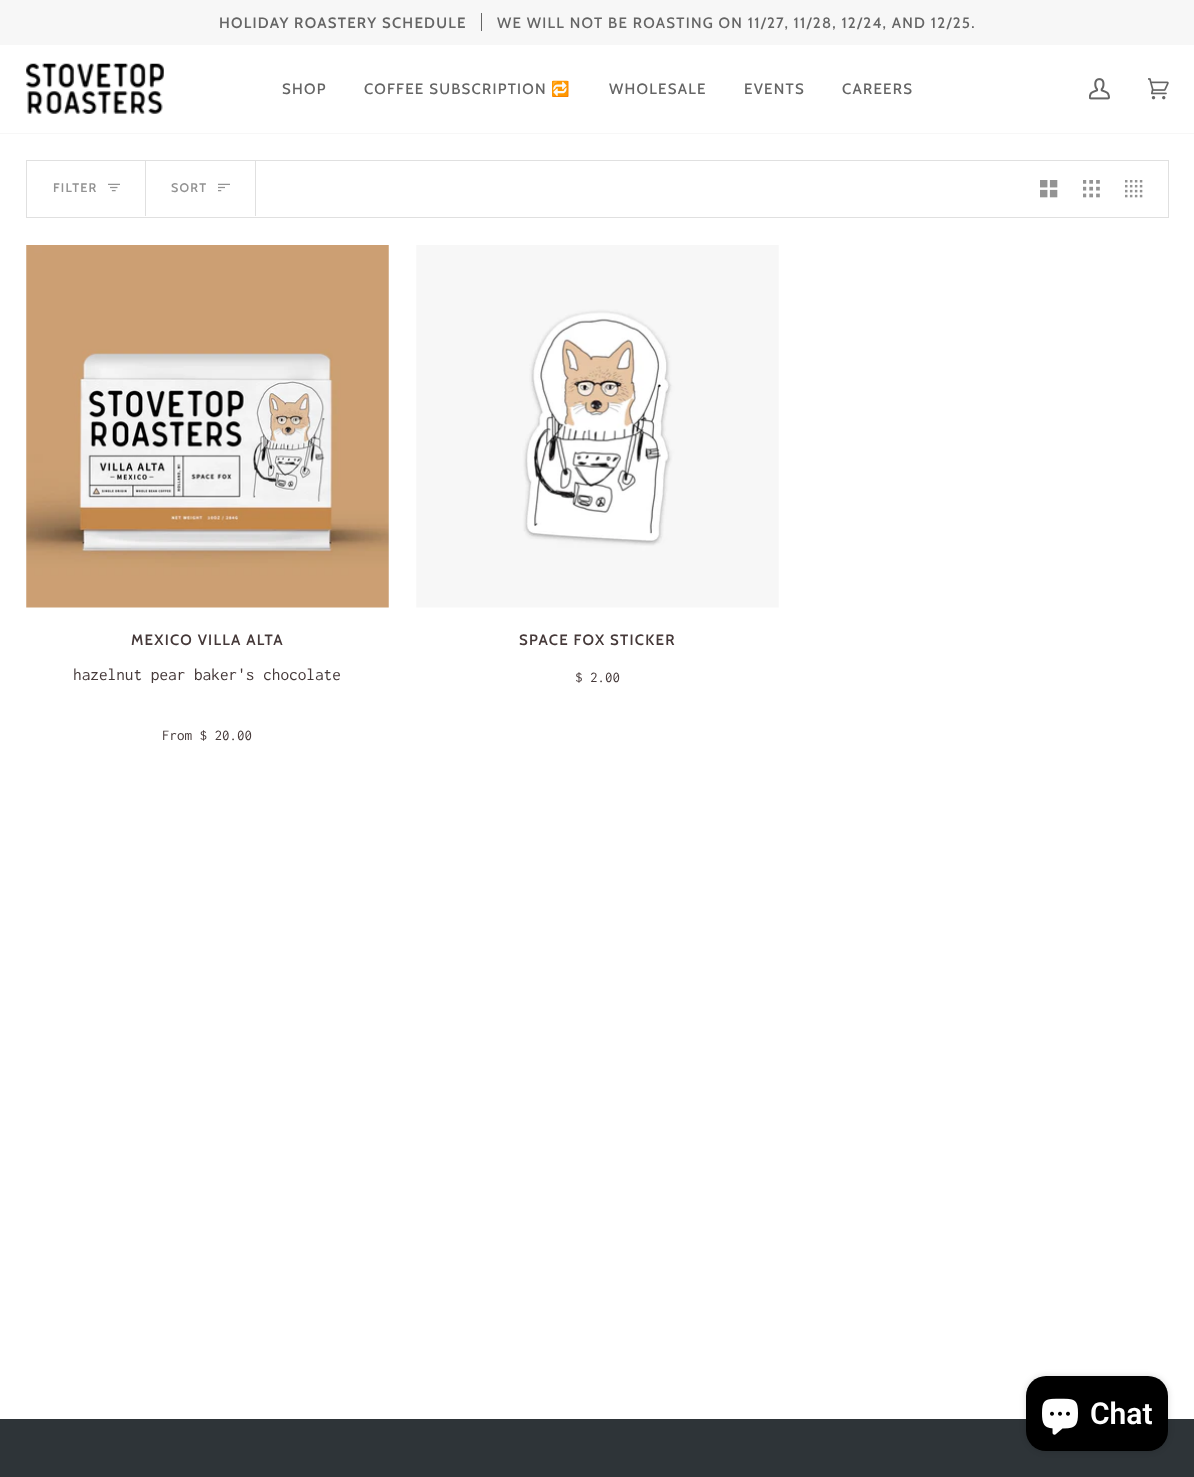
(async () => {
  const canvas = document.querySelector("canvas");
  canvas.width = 1194;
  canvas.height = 1477;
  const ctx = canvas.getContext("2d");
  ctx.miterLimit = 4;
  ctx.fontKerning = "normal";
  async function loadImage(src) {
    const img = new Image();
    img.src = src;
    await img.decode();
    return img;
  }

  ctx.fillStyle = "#ffffff";
  ctx.fillRect(0, 0, 1194, 1477);
  for (const [x, y, w, h, color] of [
    [0, 0, 1194, 45, "#f7f7f7"],
    [481, 13, 1, 18, "#656565"],
    [0, 133, 1194, 1, "#f7f7f7"],
  ]) {
    ctx.fillStyle = color;
    ctx.fillRect(x, y, w, h);
  }
  ctx.drawImage(await loadImage("img/1.png"), 26, 63, 138, 51);
  ctx.drawImage(await loadImage("img/2.png"), 1089, 78, 21, 22);
  ctx.drawImage(await loadImage("img/3.png"), 1148, 78, 21, 22);
  ctx.strokeStyle = "#e0e0e0";
  ctx.strokeRect(26.5, 160.5, 1142, 57);
  ctx.fillStyle = "#e0e0e0";
  ctx.fillRect(145, 161, 1, 55);
  ctx.drawImage(await loadImage("img/4.png"), 108, 183, 12, 9);
  ctx.fillRect(255, 161, 1, 55);
  ctx.drawImage(await loadImage("img/5.png"), 218, 183, 12, 9);
  ctx.drawImage(await loadImage("img/6.png"), 1040, 180, 18, 18);
  ctx.drawImage(await loadImage("img/7.png"), 1083, 180, 17, 18);
  ctx.drawImage(await loadImage("img/8.png"), 1125, 180, 18, 18);
  ctx.drawImage(await loadImage("img/9.png"), 26, 245, 363, 363);
  ctx.drawImage(await loadImage("img/10.png"), 416, 245, 363, 363);
  ctx.fillStyle = "#2e3438";
  ctx.fillRect(0, 1419, 1194, 58);
  ctx.fillStyle = "rgba(0, 0, 0, 0.15)";
  ctx.filter = "blur(3px)";
  ctx.beginPath();
  ctx.roundRect(1026, 1376, 142, 75, 20);
  ctx.fill();
  ctx.filter = "none";
  ctx.fillStyle = "#000000";
  ctx.beginPath();
  ctx.roundRect(1026, 1376, 142, 75, 20);
  ctx.fill();
  ctx.drawImage(await loadImage("img/11.png"), 1042, 1398, 36, 37);
  ctx.letterSpacing = "1.25px";
  ctx.font = "600 15px Cabin";
  ctx.fillStyle = "#656565";
  ctx.fillText("HOLIDAY ROASTERY SCHEDULE", 219, 28);
  ctx.font = "500 15px Cabin";
  for (const [text, x, y] of [
    ["WE WILL NOT BE ROASTING ON 11/27, 11/28, 12/24, AND 12/25.", 497, 28],
    ["SHOP", 282, 94],
    ["COFFEE SUBSCRIPTION", 364, 94],
  ]) {
    ctx.fillText(text, x, y);
  }
  ctx.font = "15px Noto Color Emoji";
  ctx.fillText("🔁", 551, 94);
  ctx.font = "500 15px Cabin";
  for (const [text, x, y] of [
    ["WHOLESALE", 609, 94],
    ["EVENTS", 744, 94],
    ["CAREERS", 842, 94],
  ]) {
    ctx.fillText(text, x, y);
  }
  ctx.font = "600 12.5px Cabin";
  ctx.fillStyle = "#939393";
  ctx.fillText("FILTER", 53, 192);
  ctx.fillText("SORT", 171, 192);
  ctx.font = "600 15px Cabin";
  ctx.fillStyle = "#453939";
  ctx.fillText("MEXICO VILLA ALTA", 131, 645);
  ctx.letterSpacing = "0px";
  ctx.font = "17.3px Inconsolata";
  ctx.fillText("hazelnut pear baker's chocolate", 73, 680);
  ctx.font = "15px Inconsolata";
  ctx.fillText("From $ 20.00", 162, 740);
  ctx.letterSpacing = "1.25px";
  ctx.font = "600 15px Cabin";
  ctx.fillText("SPACE FOX STICKER", 519, 645);
  ctx.letterSpacing = "0px";
  ctx.font = "15px Inconsolata";
  ctx.fillText("$ 2.00", 575, 682);
  ctx.font = "600 30px Roboto";
  ctx.fillStyle = "#ffffff";
  ctx.fillText("Chat", 1090, 1424);
})();
